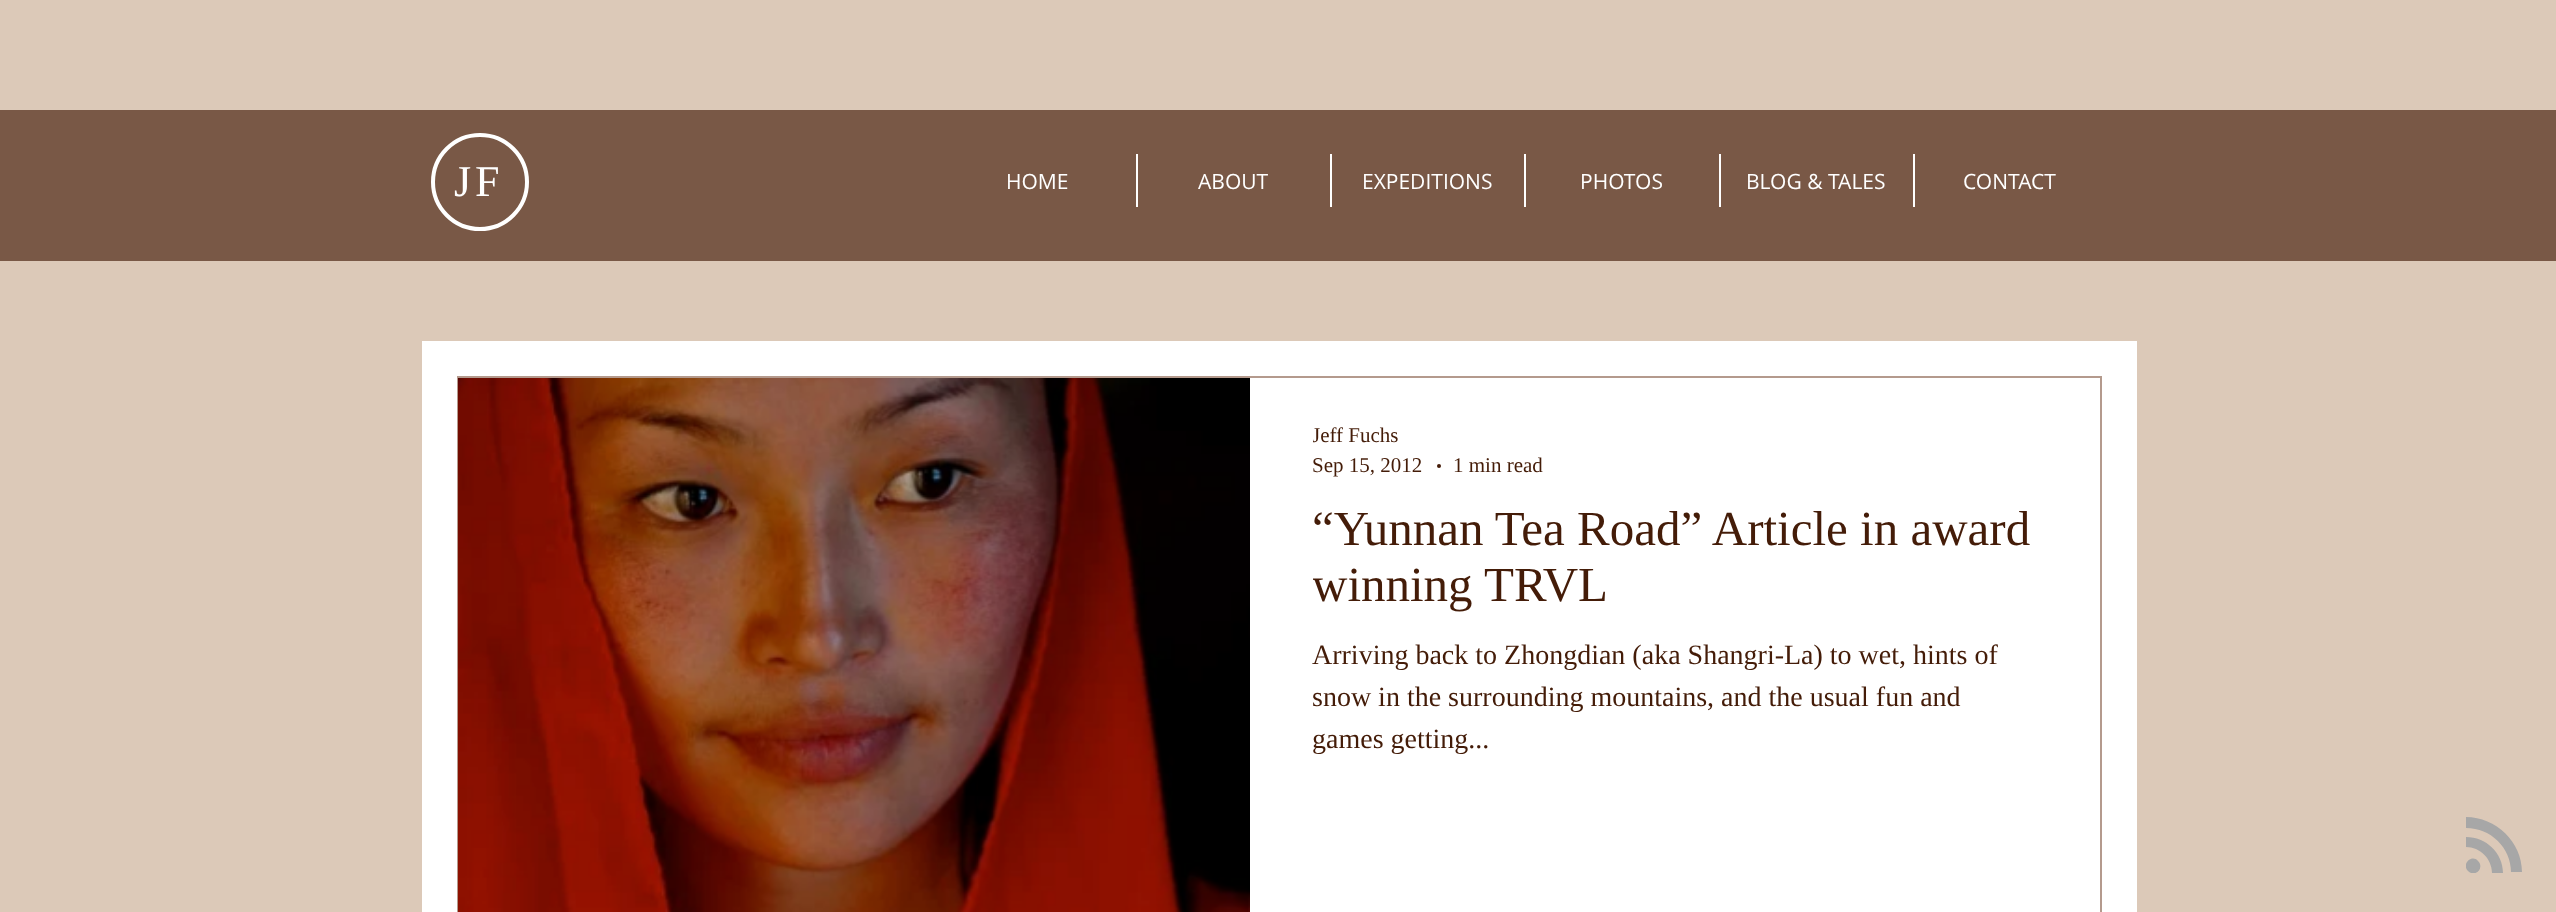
(async () => {
  const canvas = document.querySelector("canvas");
  canvas.width = 2556;
  canvas.height = 912;
  const ctx = canvas.getContext("2d");
  ctx.miterLimit = 4;
  ctx.fontKerning = "normal";
  async function loadImage(src) {
    const img = new Image();
    img.src = src;
    await img.decode();
    return img;
  }
  let path;

  ctx.fillStyle = "#dcc9b8";
  ctx.fillRect(0, 0, 2556, 912);
  ctx.fillStyle = "#795846";
  ctx.fillRect(0, 110, 2556, 151);
  ctx.beginPath();
  ctx.arc(480, 182, 47, 0, Math.PI * 2);
  ctx.strokeStyle = "#ffffff";
  ctx.lineWidth = 4;
  ctx.stroke();
  for (const [x, y, w, h, color] of [
    [1136, 154, 2, 53, "#ffffff"],
    [1330, 154, 2, 53, "#ffffff"],
    [1524, 154, 2, 53, "#ffffff"],
    [1719, 154, 2, 53, "#ffffff"],
    [1913, 154, 2, 53, "#ffffff"],
    [422, 341, 1715, 571, "#ffffff"],
  ]) {
    ctx.fillStyle = color;
    ctx.fillRect(x, y, w, h);
  }
  ctx.strokeStyle = "#b49a8d";
  ctx.lineWidth = 2;
  ctx.strokeRect(458, 377, 1643, 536);
  ctx.drawImage(await loadImage("img/1.png"), 458, 378, 792, 534);
  ctx.fillStyle = "#441c08";
  ctx.beginPath();
  ctx.arc(1439, 466, 2, 0, Math.PI * 2);
  ctx.fill();
  ctx.save();
  ctx.beginPath();
  ctx.rect(2466, 817, 56, 56);
  ctx.clip();
  ctx.fillStyle = "#a7a7a7";
  path = new Path2D("M2466 837C2486 837 2503 853 2503 873H2492C2492 859 2480 847 2466 847ZM2466 817C2496 817 2522 842 2522 872H2511C2511 848 2491 828 2466 828ZM2478 861C2485 868 2475 878 2468 871C2461 864 2472 854 2478 861Z");
  ctx.fill(path, "evenodd");
  ctx.restore();
  ctx.letterSpacing = "4px";
  ctx.font = "44px Liberation Serif";
  ctx.fillStyle = "#ffffff";
  ctx.fillText("JF", 454, 196);
  ctx.letterSpacing = "0px";
  ctx.font = "21px Open Sans";
  for (const [text, x, y] of [
    ["HOME", 1006, 189],
    ["ABOUT", 1198, 189],
    ["EXPEDITIONS", 1362, 189],
    ["PHOTOS", 1580, 189],
    ["BLOG & TALES", 1746, 189],
    ["CONTACT", 1963, 189],
  ]) {
    ctx.fillText(text, x, y);
  }
  ctx.save();
  ctx.beginPath();
  ctx.rect(1313, 424, 85, 26);
  ctx.clip();
  ctx.font = "21px Liberation Serif";
  ctx.fillStyle = "#441c08";
  ctx.fillText("Jeff Fuchs", 1312, 442);
  ctx.restore();
  ctx.font = "21px Liberation Serif";
  ctx.fillStyle = "#441c08";
  ctx.fillText("Sep 15, 2012", 1312, 472);
  ctx.fillText("1 min read", 1453, 472);
  ctx.font = "49px Liberation Serif";
  ctx.fillText("“Yunnan Tea Road” Article in award", 1312, 545);
  ctx.save();
  ctx.beginPath();
  ctx.rect(1313, 502, 724, 112);
  ctx.clip();
  ctx.fillText("winning TRVL", 1312, 601);
  ctx.restore();
  ctx.font = "28px Liberation Serif";
  ctx.fillText("Arriving back to Zhongdian (aka Shangri-La) to wet, hints of", 1312, 664);
  ctx.save();
  ctx.beginPath();
  ctx.rect(1313, 635, 724, 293);
  ctx.clip();
  ctx.fillText("snow in the surrounding mountains, and the usual fun and", 1312, 706);
  ctx.restore();
  ctx.fillText("games getting...", 1312, 748);
})();
